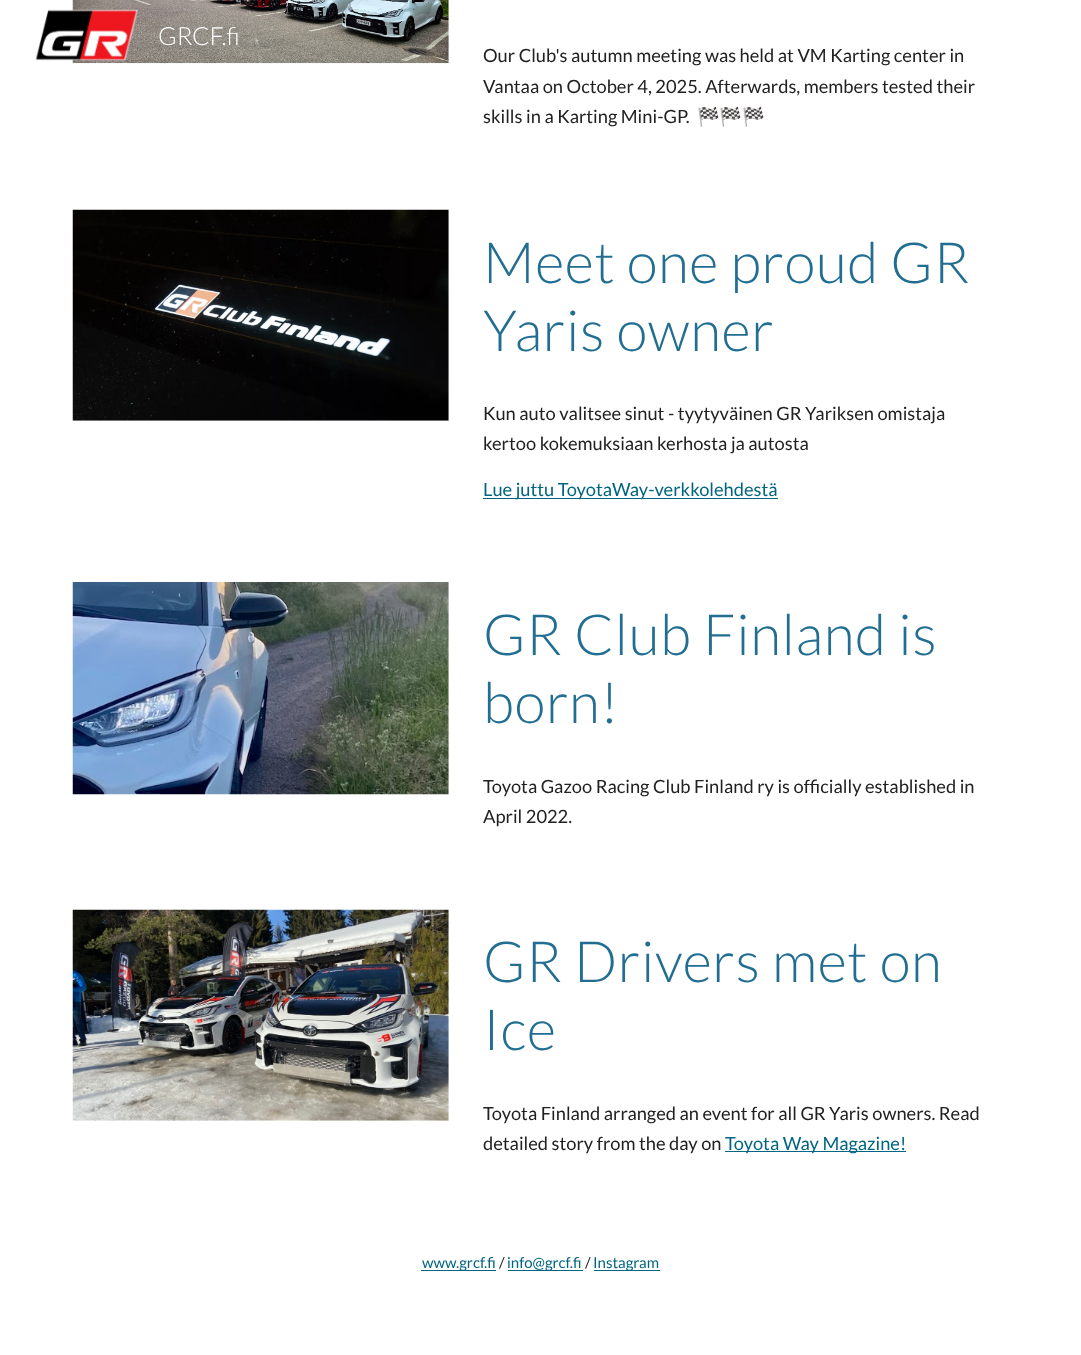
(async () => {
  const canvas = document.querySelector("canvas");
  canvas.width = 1081;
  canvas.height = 1355;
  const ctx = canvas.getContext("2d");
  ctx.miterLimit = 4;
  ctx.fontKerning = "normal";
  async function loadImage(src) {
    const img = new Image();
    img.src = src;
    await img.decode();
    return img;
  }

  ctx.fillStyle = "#ffffff";
  ctx.fillRect(0, 0, 1081, 1355);
  ctx.drawImage(await loadImage("img/2.png"), 72, 0, 377, 64);
  ctx.drawImage(await loadImage("img/1.png"), 35, 9, 103, 52);
  ctx.drawImage(await loadImage("img/3.png"), 72, 209, 377, 212);
  ctx.fillStyle = "#006580";
  ctx.fillRect(483, 498, 295, 1);
  ctx.drawImage(await loadImage("img/4.png"), 72, 582, 377, 213);
  ctx.drawImage(await loadImage("img/5.png"), 72, 909, 377, 212);
  for (const [x, y, w, h, color] of [
    [725, 1151, 181, 1, "#006580"],
    [421, 1270, 75, 1, "#006580"],
    [508, 1270, 75, 1, "#006580"],
    [594, 1270, 66, 1, "#006580"],
  ]) {
    ctx.fillStyle = color;
    ctx.fillRect(x, y, w, h);
  }
  ctx.font = "300 25px Lato";
  ctx.fillStyle = "#ffffff";
  ctx.fillText("GRCF.fi", 158, 45);
  ctx.font = "18.3px Lato";
  ctx.fillStyle = "#212121";
  for (const [text, x, y] of [
    ["Our Club's autumn meeting was held at VM Karting center in", 483, 62],
    ["Vantaa on October 4, 2025. Afterwards, members tested their", 483, 93],
    ["skills in a Karting Mini-GP.", 483, 123],
  ]) {
    ctx.fillText(text, x, y);
  }
  ctx.font = "18.3px Noto Color Emoji";
  ctx.fillText("🏁🏁🏁", 697, 123);
  ctx.letterSpacing = "0.6px";
  ctx.font = "300 56.75px Lato";
  ctx.fillStyle = "#226e93";
  ctx.fillText("Meet one proud GR", 483, 283);
  ctx.fillText("Yaris owner", 483, 351);
  ctx.letterSpacing = "0px";
  ctx.font = "18.3px Lato";
  ctx.fillStyle = "#212121";
  ctx.fillText("Kun auto valitsee sinut - tyytyväinen GR Yariksen omistaja", 483, 420);
  ctx.fillText("kertoo kokemuksiaan kerhosta ja autosta", 483, 450);
  ctx.fillStyle = "#006580";
  ctx.fillText("Lue juttu ToyotaWay-verkkolehdestä", 483, 496);
  ctx.letterSpacing = "0.6px";
  ctx.font = "300 56.75px Lato";
  ctx.fillStyle = "#226e93";
  ctx.fillText("GR Club Finland is", 483, 655);
  ctx.fillText("born!", 483, 723);
  ctx.letterSpacing = "0px";
  ctx.font = "18.3px Lato";
  ctx.fillStyle = "#212121";
  ctx.fillText("Toyota Gazoo Racing Club Finland ry is officially established in", 483, 793);
  ctx.fillText("April 2022.", 483, 823);
  ctx.letterSpacing = "0.6px";
  ctx.font = "300 56.75px Lato";
  ctx.fillStyle = "#226e93";
  ctx.fillText("GR Drivers met on", 483, 982);
  ctx.fillText("Ice", 483, 1050);
  ctx.letterSpacing = "0px";
  ctx.font = "18.3px Lato";
  ctx.fillStyle = "#212121";
  ctx.fillText("Toyota Finland arranged an event for all GR Yaris owners. Read", 483, 1120);
  ctx.fillText("detailed story from the day on", 483, 1150);
  ctx.fillStyle = "#006580";
  ctx.fillText("Toyota Way Magazine!", 725, 1150);
  ctx.font = "15px Lato";
  ctx.fillText("www.grcf.fi", 422, 1268);
  ctx.fillStyle = "#212121";
  ctx.fillText("/", 499, 1268);
  ctx.fillStyle = "#006580";
  ctx.fillText("info@grcf.fi", 507, 1268);
  ctx.fillStyle = "#212121";
  ctx.fillText("/", 585, 1268);
  ctx.fillStyle = "#006580";
  ctx.fillText("Instagram", 593, 1268);
})();
